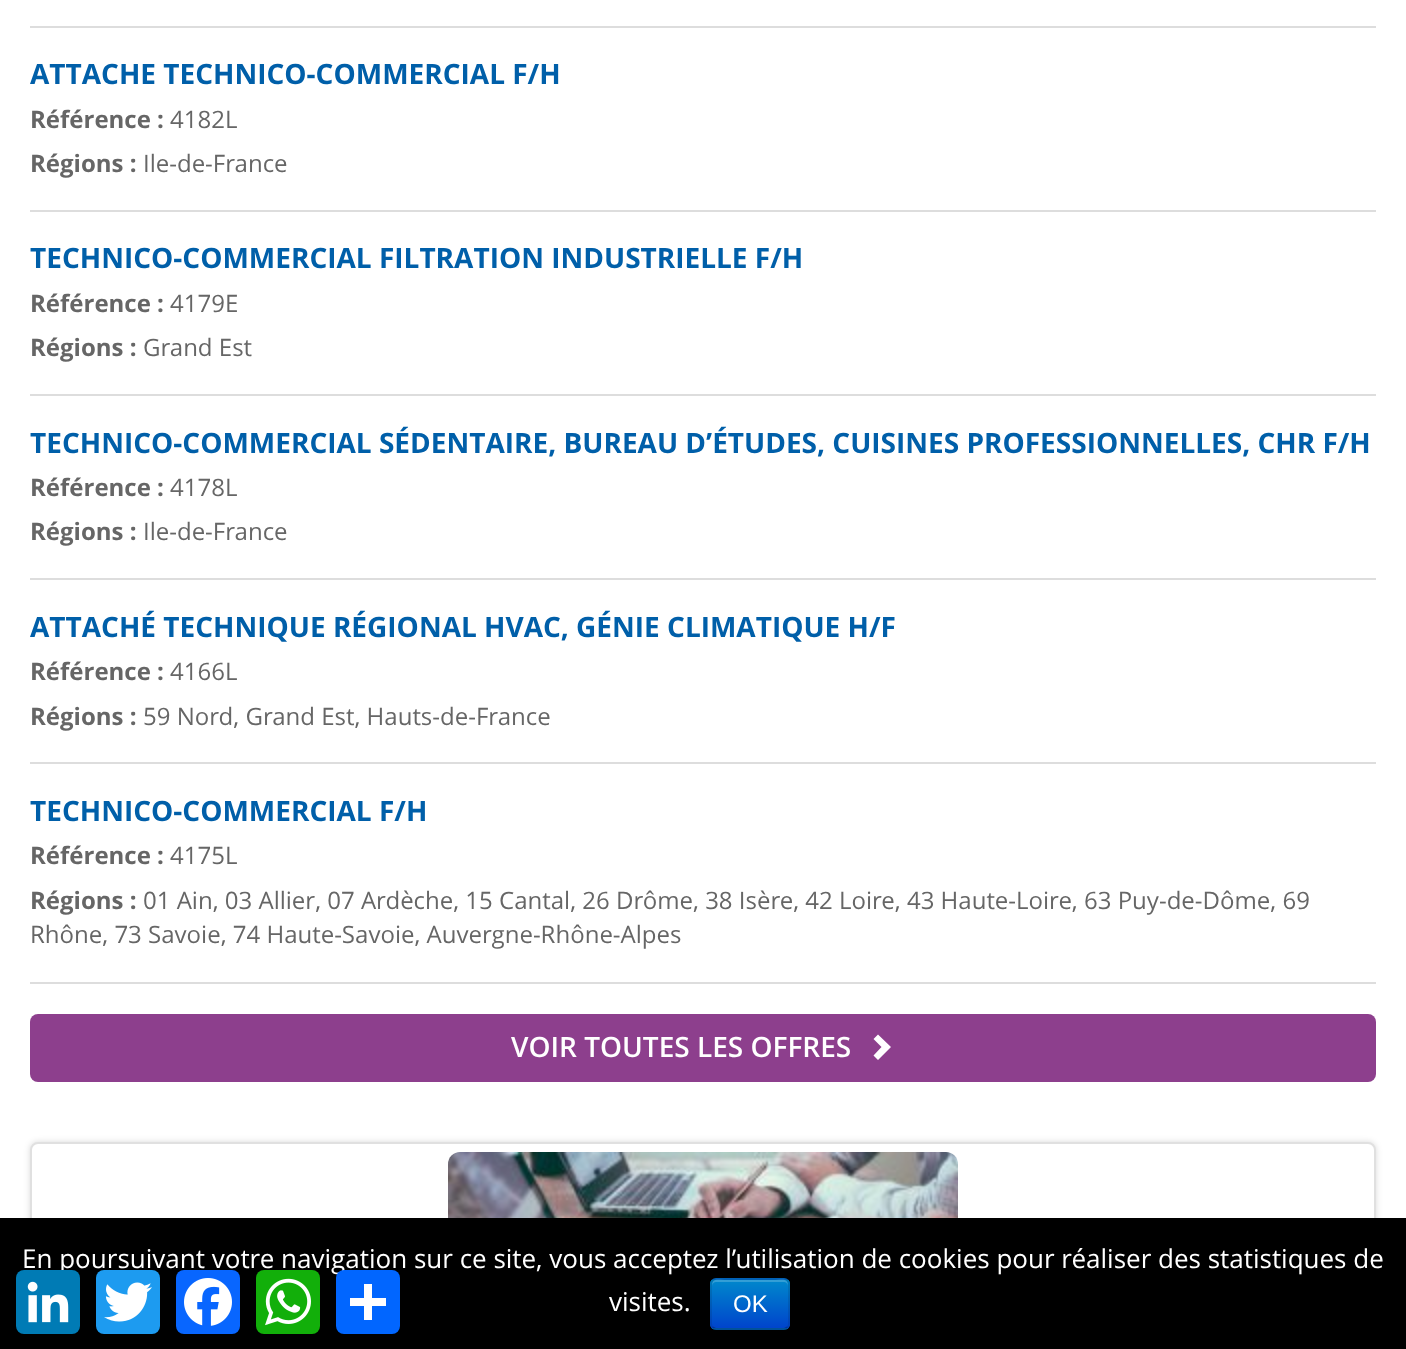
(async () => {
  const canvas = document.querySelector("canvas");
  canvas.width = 1406;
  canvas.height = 1349;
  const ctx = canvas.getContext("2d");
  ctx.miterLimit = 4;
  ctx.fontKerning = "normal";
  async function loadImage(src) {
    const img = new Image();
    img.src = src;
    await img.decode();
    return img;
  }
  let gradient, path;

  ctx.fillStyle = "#ffffff";
  ctx.fillRect(0, 0, 1406, 1349);
  for (const [x, y, w, h, color] of [
    [30, 26, 1346, 2, "#dddddd"],
    [30, 210, 1346, 2, "#dddddd"],
    [30, 394, 1346, 2, "#dddddd"],
    [30, 578, 1346, 2, "#dddddd"],
    [30, 762, 1346, 2, "#dddddd"],
    [30, 982, 1346, 2, "#dddddd"],
  ]) {
    ctx.fillStyle = color;
    ctx.fillRect(x, y, w, h);
  }
  ctx.fillStyle = "#8d3f8d";
  ctx.beginPath();
  ctx.roundRect(30, 1014, 1346, 68, 8);
  ctx.fill();
  ctx.fillStyle = "#ffffff";
  path = new Path2D("M891 1047L878 1060L873.5 1055.5L881.5 1047L873.5 1039L878 1034.5Z");
  ctx.fill(path);
  ctx.fillStyle = "rgba(0, 0, 0, 0.15)";
  ctx.filter = "blur(3px)";
  ctx.beginPath();
  ctx.roundRect(30, 1142, 1346, 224, 8);
  ctx.fill();
  ctx.filter = "none";
  ctx.fillStyle = "#ffffff";
  ctx.beginPath();
  ctx.roundRect(31, 1143, 1344, 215, 7);
  ctx.fill();
  ctx.strokeStyle = "#e0e0e0";
  ctx.lineWidth = 2;
  ctx.stroke();
  ctx.drawImage(await loadImage("img/1.png"), 448, 1152, 510, 66);
  ctx.fillStyle = "#000000";
  ctx.fillRect(0, 1218, 1406, 131);
  ctx.fillStyle = "#006dcc";
  ctx.beginPath();
  ctx.roundRect(710, 1278, 80, 52, 6);
  ctx.fill();
  ctx.save();
  ctx.beginPath();
  ctx.roundRect(710, 1278, 80, 52, 6);
  ctx.clip();
  gradient = ctx.createLinearGradient(750, 1280, 750, 1328);
  gradient.addColorStop(0, "#0088cc");
  gradient.addColorStop(1, "#0044cc");
  ctx.fillStyle = gradient;
  ctx.fillRect(710, 1280, 80, 48);
  ctx.restore();
  ctx.fillStyle = "rgba(255, 255, 255, 0.2)";
  path = new Path2D("M716 1282H784C786 1282 788 1284 788 1286C788 1277 781 1280 773 1280H727C719 1280 712 1277 712 1286C712 1284 714 1282 716 1282Z");
  ctx.fill(path);
  path = new Path2D("M787.5 1327.5L784.5 1329H715.5L712.5 1327.5");
  ctx.strokeStyle = "rgba(0, 0, 0, 0.25)";
  ctx.stroke(path);
  path = new Path2D("M712.5 1327.5C711.5 1326.5 711 1325.5 711 1324V1284C711 1282.5 711.5 1281.5 712.5 1280.5C713.5 1279.5 714.5 1279 716 1279H784C785.5 1279 786.5 1279.5 787.5 1280.5C788.5 1281.5 789 1282.5 789 1284V1324C789 1325.5 788.5 1326.5 787.5 1327.5");
  ctx.strokeStyle = "rgba(0, 0, 0, 0.1)";
  ctx.stroke(path);
  ctx.font = "bold 28px Open Sans";
  ctx.fillStyle = "#005fa9";
  ctx.fillText("ATTACHE TECHNICO-COMMERCIAL F/H", 30, 84);
  ctx.font = "bold 24px Open Sans";
  ctx.fillStyle = "#666666";
  ctx.fillText("Référence :", 30, 128);
  ctx.font = "24px Open Sans";
  ctx.fillText("4182L", 170, 128);
  ctx.font = "bold 24px Open Sans";
  ctx.fillText("Régions :", 30, 172);
  ctx.font = "24px Open Sans";
  ctx.fillText("Ile-de-France", 143, 172);
  ctx.font = "bold 28px Open Sans";
  ctx.fillStyle = "#005fa9";
  ctx.fillText("TECHNICO-COMMERCIAL FILTRATION INDUSTRIELLE F/H", 30, 268);
  ctx.font = "bold 24px Open Sans";
  ctx.fillStyle = "#666666";
  ctx.fillText("Référence :", 30, 312);
  ctx.font = "24px Open Sans";
  ctx.fillText("4179E", 170, 312);
  ctx.font = "bold 24px Open Sans";
  ctx.fillText("Régions :", 30, 356);
  ctx.font = "24px Open Sans";
  ctx.fillText("Grand Est", 143, 356);
  ctx.font = "bold 28px Open Sans";
  ctx.fillStyle = "#005fa9";
  ctx.fillText("TECHNICO-COMMERCIAL SÉDENTAIRE, BUREAU D’ÉTUDES, CUISINES PROFESSIONNELLES, CHR F/H", 30, 453);
  ctx.font = "bold 24px Open Sans";
  ctx.fillStyle = "#666666";
  ctx.fillText("Référence :", 30, 496);
  ctx.font = "24px Open Sans";
  ctx.fillText("4178L", 170, 496);
  ctx.font = "bold 24px Open Sans";
  ctx.fillText("Régions :", 30, 540);
  ctx.font = "24px Open Sans";
  ctx.fillText("Ile-de-France", 143, 540);
  ctx.font = "bold 28px Open Sans";
  ctx.fillStyle = "#005fa9";
  ctx.fillText("ATTACHÉ TECHNIQUE RÉGIONAL HVAC, GÉNIE CLIMATIQUE H/F", 30, 637);
  ctx.font = "bold 24px Open Sans";
  ctx.fillStyle = "#666666";
  ctx.fillText("Référence :", 30, 680);
  ctx.font = "24px Open Sans";
  ctx.fillText("4166L", 170, 680);
  ctx.font = "bold 24px Open Sans";
  ctx.fillText("Régions :", 30, 725);
  ctx.font = "24px Open Sans";
  ctx.fillText("59 Nord, Grand Est, Hauts-de-France", 143, 725);
  ctx.font = "bold 28px Open Sans";
  ctx.fillStyle = "#005fa9";
  ctx.fillText("TECHNICO-COMMERCIAL F/H", 30, 821);
  ctx.font = "bold 24px Open Sans";
  ctx.fillStyle = "#666666";
  ctx.fillText("Référence :", 30, 864);
  ctx.font = "24px Open Sans";
  ctx.fillText("4175L", 170, 864);
  ctx.font = "bold 24px Open Sans";
  ctx.fillText("Régions :", 30, 909);
  ctx.font = "24px Open Sans";
  ctx.fillText("01 Ain, 03 Allier, 07 Ardèche, 15 Cantal, 26 Drôme, 38 Isère, 42 Loire, 43 Haute-Loire, 63 Puy-de-Dôme, 69", 143, 909);
  ctx.fillText("Rhône, 73 Savoie, 74 Haute-Savoie, Auvergne-Rhône-Alpes", 30, 943);
  ctx.font = "600 28px Open Sans";
  ctx.fillStyle = "#ffffff";
  ctx.fillText("VOIR TOUTES LES OFFRES", 511, 1057);
  ctx.font = "26px Open Sans";
  ctx.fillText("En poursuivant votre navigation sur ce site, vous acceptez l’utilisation de cookies pour réaliser des statistiques de", 22, 1268);
  ctx.fillText("visites.", 609, 1311);
  ctx.font = "24px Liberation Sans";
  ctx.fillText("OK", 733, 1312);
  ctx.fillStyle = "#007bb5";
  ctx.beginPath();
  ctx.roundRect(16, 1270, 64, 64, 8);
  ctx.fill();
  ctx.drawImage(await loadImage("img/2.png"), 27, 1281, 42, 42);
  ctx.fillStyle = "#1d9bf0";
  ctx.beginPath();
  ctx.roundRect(96, 1270, 64, 64, 8);
  ctx.fill();
  ctx.drawImage(await loadImage("img/3.png"), 104, 1282, 48, 40);
  ctx.fillStyle = "#0866ff";
  ctx.beginPath();
  ctx.roundRect(176, 1270, 64, 64, 8);
  ctx.fill();
  ctx.drawImage(await loadImage("img/4.png"), 184, 1278, 48, 48);
  ctx.fillStyle = "#12af0a";
  ctx.beginPath();
  ctx.roundRect(256, 1270, 64, 64, 8);
  ctx.fill();
  ctx.drawImage(await loadImage("img/5.png"), 265, 1278, 46, 48);
  ctx.fillStyle = "#0166ff";
  ctx.beginPath();
  ctx.roundRect(336, 1270, 64, 64, 8);
  ctx.fill();
  ctx.fillStyle = "#ffffff";
  ctx.fillRect(364, 1284, 8, 36);
  ctx.fillRect(350, 1298, 36, 8);
})();
